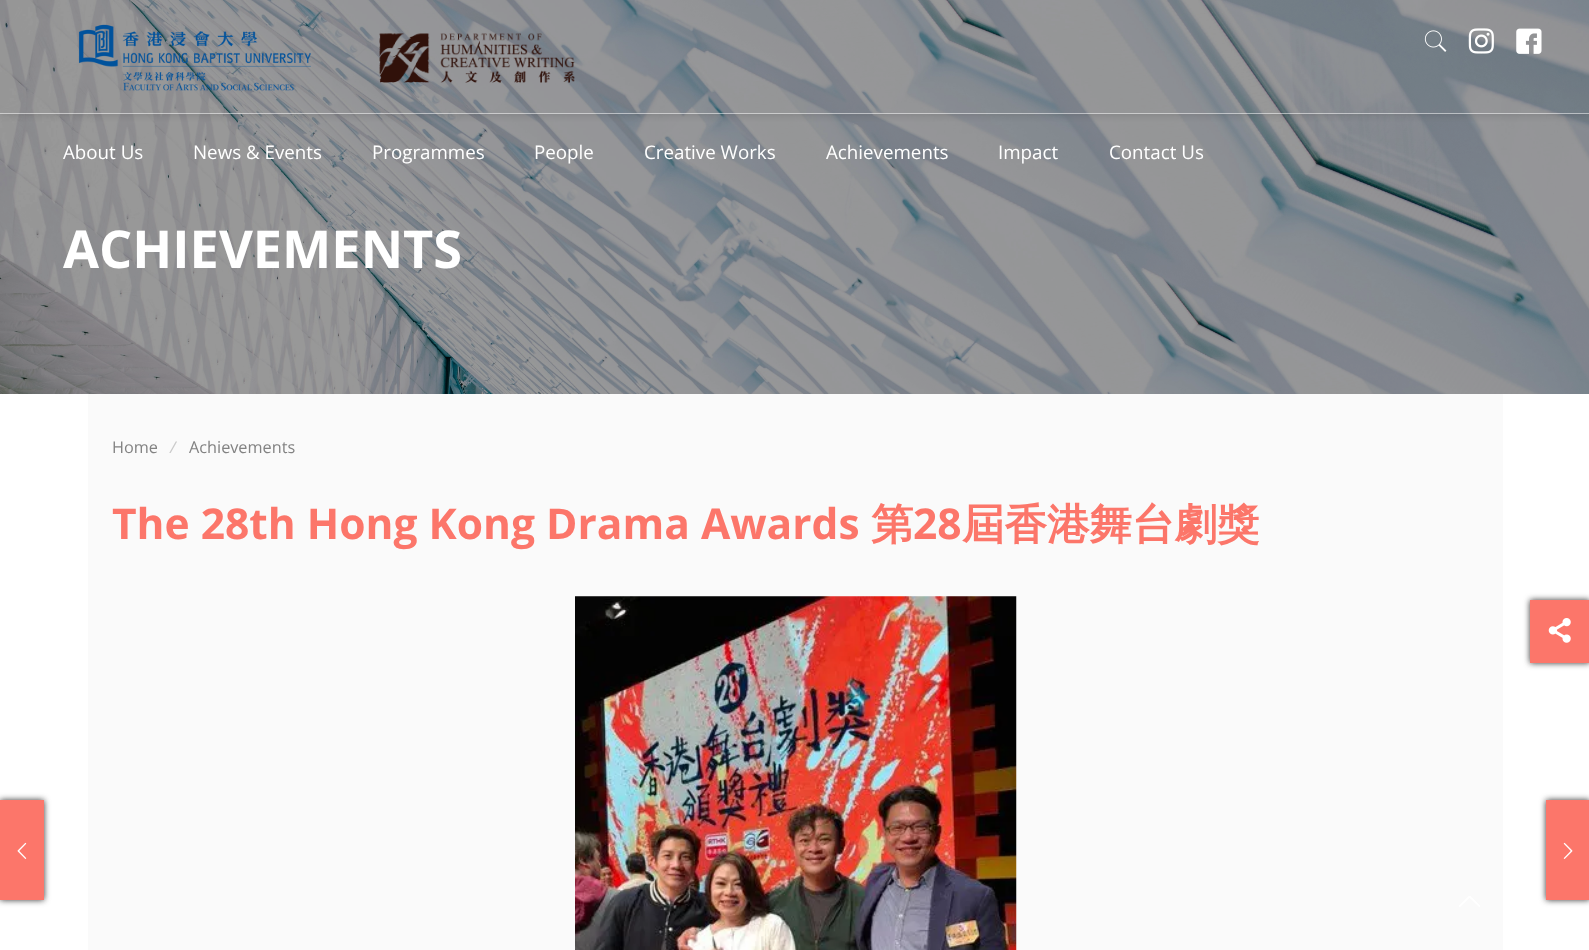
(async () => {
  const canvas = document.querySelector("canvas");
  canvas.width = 1589;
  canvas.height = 950;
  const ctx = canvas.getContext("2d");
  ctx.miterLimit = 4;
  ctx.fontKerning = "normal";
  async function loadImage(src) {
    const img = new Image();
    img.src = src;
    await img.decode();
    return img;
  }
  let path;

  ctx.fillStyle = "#ffffff";
  ctx.fillRect(0, 0, 1589, 950);
  ctx.drawImage(await loadImage("img/1.png"), 0, 0, 1589, 394);
  ctx.fillStyle = "rgba(0, 0, 0, 0.4)";
  ctx.fillRect(0, 0, 1589, 394);
  ctx.save();
  path = new Path2D("M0 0H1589V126H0ZM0 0H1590V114H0Z");
  ctx.clip(path, "evenodd");
  ctx.fillStyle = "rgba(0, 0, 0, 0.1)";
  ctx.filter = "blur(3px)";
  ctx.beginPath();
  ctx.rect(0, 3, 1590, 113);
  ctx.fill();
  ctx.filter = "none";
  ctx.restore();
  ctx.fillStyle = "rgba(255, 255, 255, 0.5)";
  ctx.fillRect(0, 113, 1589, 1);
  ctx.drawImage(await loadImage("img/2.png"), 78, 24, 233, 67);
  ctx.drawImage(await loadImage("img/3.png"), 379, 33, 196, 50);
  ctx.drawImage(await loadImage("img/4.png"), 1424, 30, 23, 22);
  ctx.drawImage(await loadImage("img/5.png"), 1468, 28, 26, 26);
  ctx.drawImage(await loadImage("img/6.png"), 1516, 28, 26, 26);
  ctx.fillStyle = "#fafafa";
  ctx.fillRect(88, 394, 1415, 556);
  ctx.drawImage(await loadImage("img/7.png"), 575, 596, 442, 354);
  ctx.fillStyle = "#333333";
  ctx.filter = "blur(3px)";
  ctx.beginPath();
  ctx.rect(1530, 600, 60, 63);
  ctx.fill();
  ctx.filter = "none";
  ctx.fillStyle = "#fc766a";
  ctx.fillRect(1530, 600, 59, 63);
  ctx.drawImage(await loadImage("img/8.png"), 1548, 618, 23, 25);
  ctx.drawImage(await loadImage("img/9.png"), 1459, 896, 21, 11);
  ctx.fillStyle = "#333333";
  ctx.filter = "blur(3px)";
  ctx.beginPath();
  ctx.rect(0, 800, 44, 100);
  ctx.fill();
  ctx.filter = "none";
  ctx.fillStyle = "#fc766a";
  ctx.fillRect(0, 800, 44, 100);
  ctx.drawImage(await loadImage("img/10.png"), 17, 842, 10, 17);
  ctx.fillStyle = "#333333";
  ctx.filter = "blur(3px)";
  ctx.beginPath();
  ctx.rect(1546, 800, 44, 100);
  ctx.fill();
  ctx.filter = "none";
  ctx.fillStyle = "#fc766a";
  ctx.fillRect(1546, 800, 43, 100);
  ctx.drawImage(await loadImage("img/11.png"), 1563, 842, 10, 17);
  ctx.font = "18.75px Open Sans";
  ctx.fillStyle = "#ffffff";
  for (const [text, x, y] of [
    ["About Us", 63, 159],
    ["News & Events", 193, 159],
    ["Programmes", 372, 159],
    ["People", 534, 159],
    ["Creative Works", 644, 159],
    ["Achievements", 826, 159],
    ["Impact", 998, 159],
    ["Contact Us", 1109, 159],
  ]) {
    ctx.fillText(text, x, y);
  }
  ctx.font = "bold 52.25px Open Sans";
  ctx.fillText("ACHIEVEMENTS", 63, 268);
  ctx.font = "16.25px Open Sans";
  ctx.fillStyle = "#828282";
  ctx.fillText("Home", 112, 453);
  ctx.font = "italic 16.25px Open Sans";
  ctx.fillStyle = "#cacaca";
  ctx.fillText("/", 170, 453);
  ctx.font = "16.25px Open Sans";
  ctx.fillStyle = "#828282";
  ctx.fillText("Achievements", 189, 453);
  ctx.font = "bold 42.5px Open Sans";
  ctx.fillStyle = "#fc766a";
  ctx.fillText("The 28th Hong Kong Drama Awards", 112, 539);
  ctx.font = "bold 42.5px WenQuanYi Zen Hei";
  ctx.fillText("第", 871, 539);
  ctx.font = "bold 42.5px Open Sans";
  ctx.fillText("28", 913, 539);
  ctx.font = "bold 42.5px WenQuanYi Zen Hei";
  ctx.fillText("屆香港舞台劇獎", 962, 539);
})();
